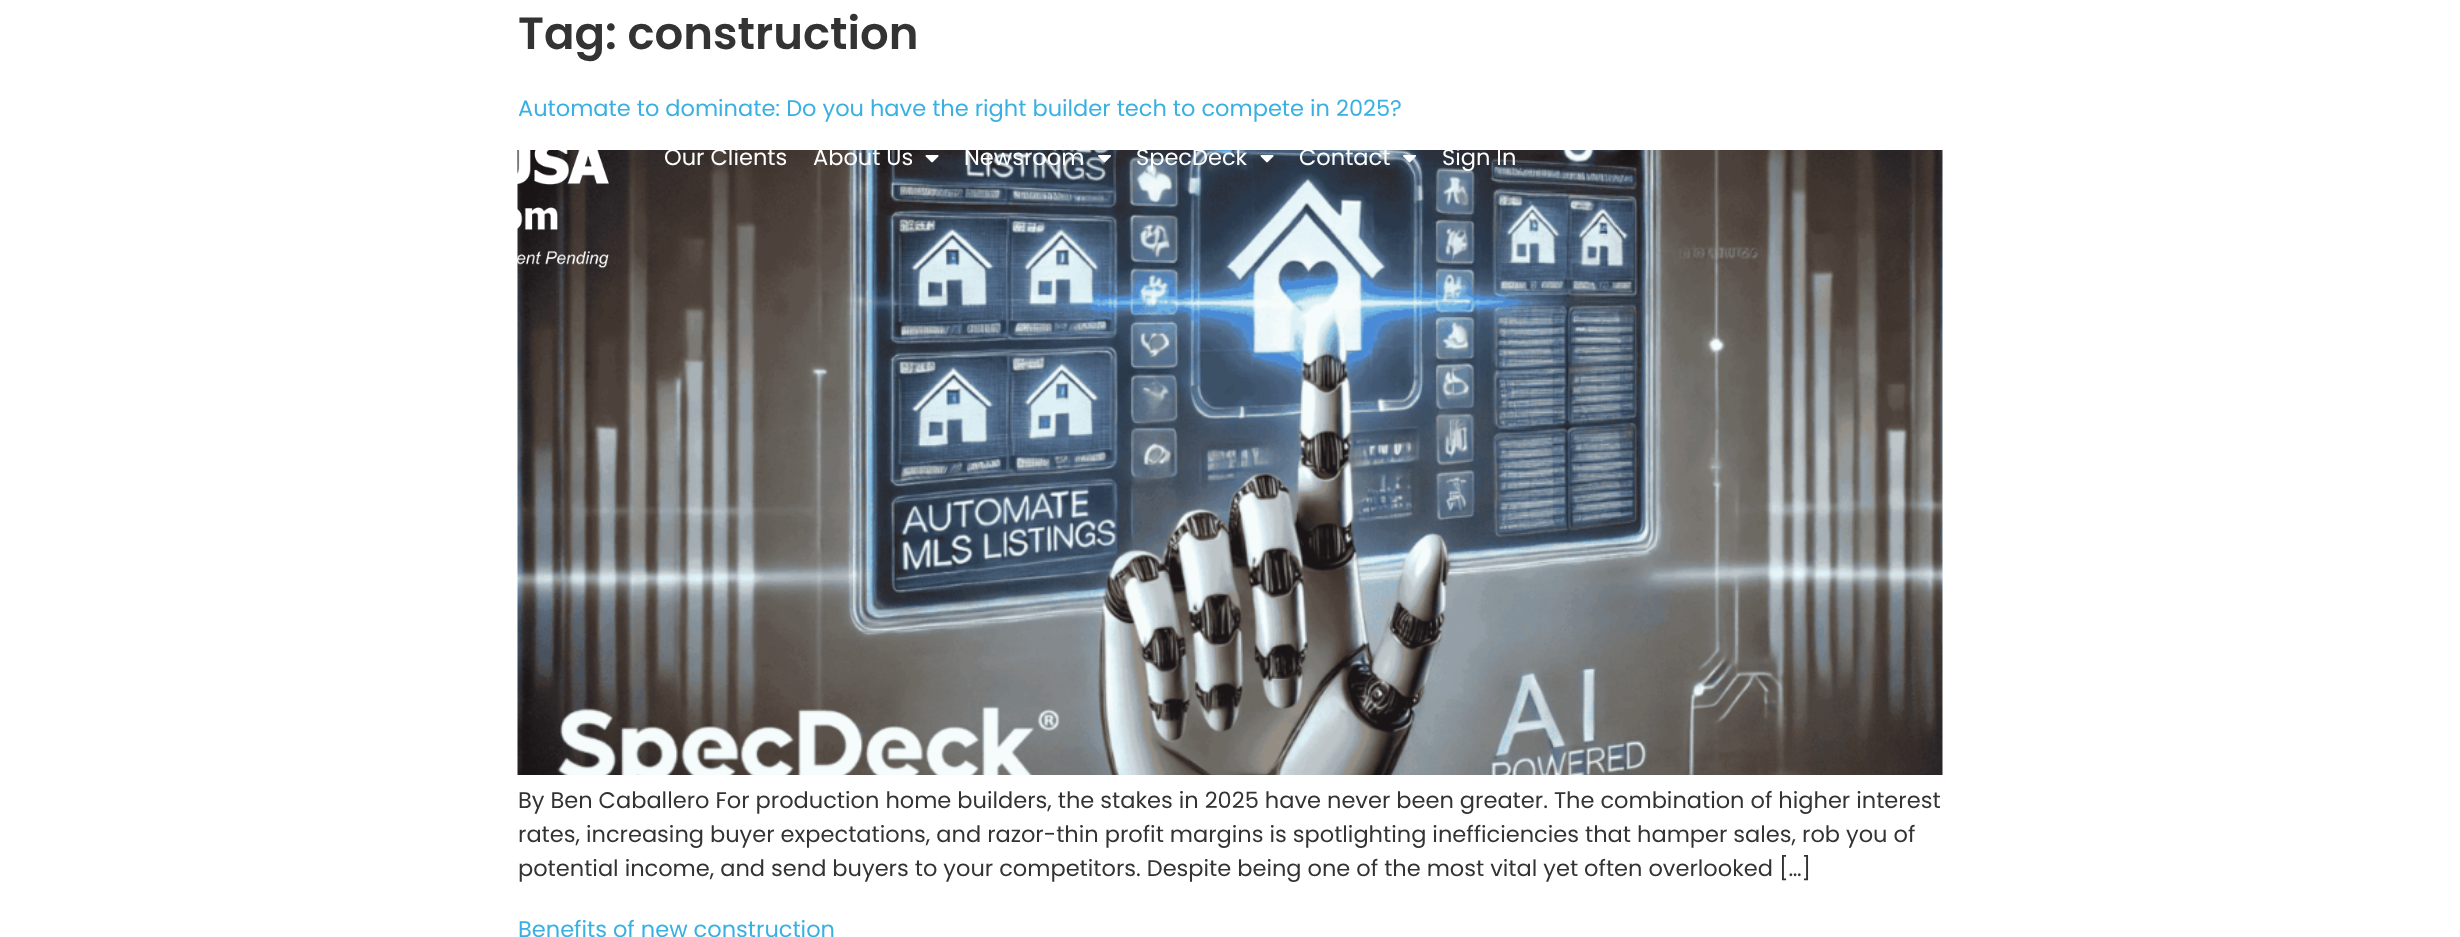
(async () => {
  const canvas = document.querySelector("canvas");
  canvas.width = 2460;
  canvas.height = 937;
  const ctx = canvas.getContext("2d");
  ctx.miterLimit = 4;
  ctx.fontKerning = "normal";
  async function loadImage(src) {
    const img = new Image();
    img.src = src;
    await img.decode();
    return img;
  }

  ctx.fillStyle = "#ffffff";
  ctx.fillRect(0, 0, 2460, 937);
  ctx.drawImage(await loadImage("img/1.png"), 517, 150, 1426, 625);
  ctx.drawImage(await loadImage("img/2.png"), 517, 150, 92, 118);
  ctx.drawImage(await loadImage("img/3.png"), 925, 155, 14, 8);
  ctx.drawImage(await loadImage("img/4.png"), 1098, 155, 13, 8);
  ctx.drawImage(await loadImage("img/5.png"), 1260, 155, 14, 8);
  ctx.drawImage(await loadImage("img/6.png"), 1403, 155, 13, 8);
  ctx.font = "600 45px Poppins";
  ctx.fillStyle = "#333333";
  ctx.fillText("Tag: construction", 518, 49);
  ctx.font = "22.5px Poppins";
  ctx.fillStyle = "#3ab0e2";
  ctx.fillText("Automate to dominate: Do you have the right builder tech to compete in 2025?", 518, 116);
  ctx.fillStyle = "#333333";
  for (const [text, x, y] of [
    ["By Ben Caballero For production home builders, the stakes in 2025 have never been greater. The combination of higher interest", 518, 808],
    ["rates, increasing buyer expectations, and razor-thin profit margins is spotlighting inefficiencies that hamper sales, rob you of", 518, 842],
    ["potential income, and send buyers to your competitors. Despite being one of the most vital yet often overlooked […]", 518, 876],
  ]) {
    ctx.fillText(text, x, y);
  }
  ctx.fillStyle = "#3ab0e2";
  ctx.fillText("Benefits of new construction", 518, 937);
  ctx.fillStyle = "#ffffff";
  for (const [text, x, y] of [
    ["Our Clients", 664, 165],
    ["About Us", 813, 165],
    ["Newsroom", 964, 165],
    ["SpecDeck", 1136, 165],
    ["Contact", 1299, 165],
    ["Sign In", 1442, 165],
  ]) {
    ctx.fillText(text, x, y);
  }
})();
